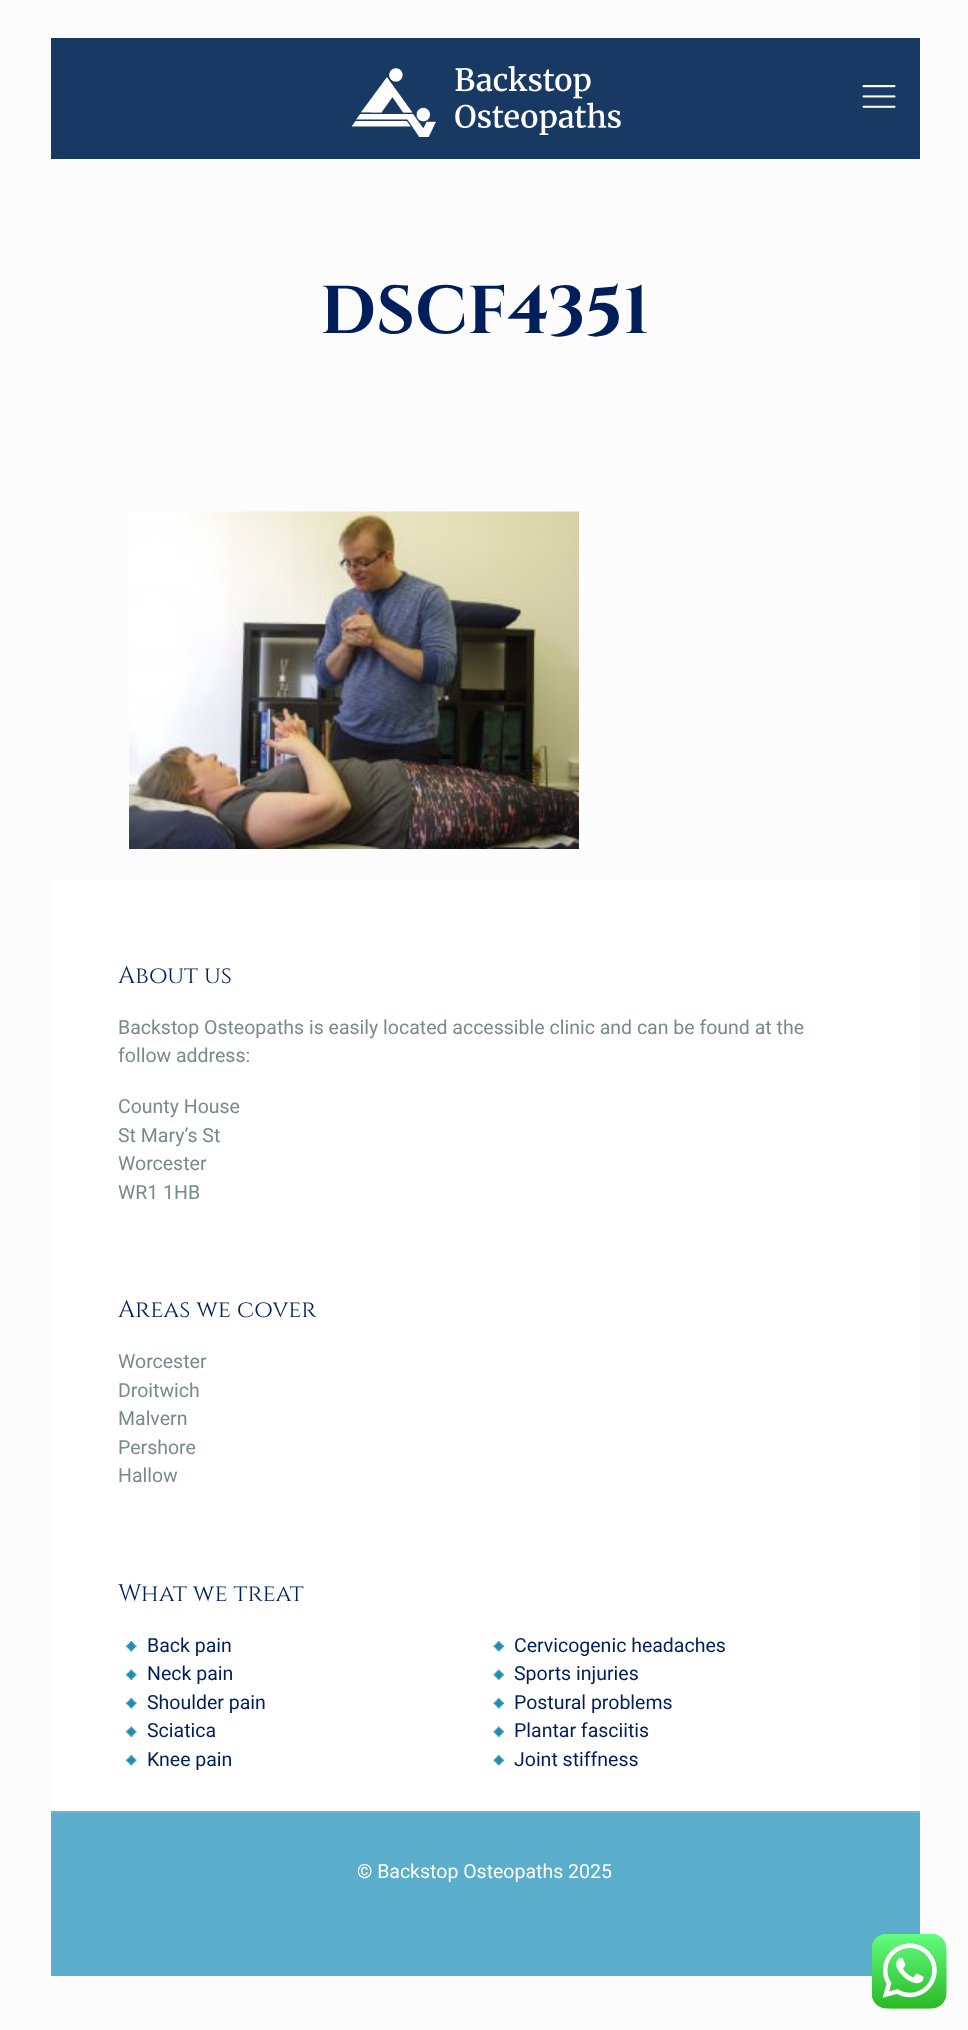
(async () => {
  const canvas = document.querySelector("canvas");
  canvas.width = 968;
  canvas.height = 2030;
  const ctx = canvas.getContext("2d");
  ctx.miterLimit = 4;
  ctx.fontKerning = "normal";
  async function loadImage(src) {
    const img = new Image();
    img.src = src;
    await img.decode();
    return img;
  }

  ctx.fillStyle = "#fcfcfc";
  ctx.fillRect(0, 0, 968, 2030);
  ctx.fillStyle = "#183964";
  ctx.fillRect(51, 38, 869, 121);
  ctx.drawImage(await loadImage("img/1.png"), 351, 65, 270, 72);
  ctx.drawImage(await loadImage("img/2.png"), 862, 85, 34, 23);
  ctx.drawImage(await loadImage("img/3.png"), 129, 511, 450, 338);
  ctx.fillStyle = "#ffffff";
  ctx.fillRect(51, 879, 869, 932);
  ctx.drawImage(await loadImage("img/4.png"), 126, 1641, 11, 11);
  ctx.drawImage(await loadImage("img/5.png"), 126, 1669, 11, 11);
  ctx.drawImage(await loadImage("img/4.png"), 126, 1698, 11, 11);
  ctx.drawImage(await loadImage("img/5.png"), 126, 1726, 11, 11);
  ctx.drawImage(await loadImage("img/4.png"), 126, 1755, 11, 11);
  ctx.drawImage(await loadImage("img/6.png"), 493, 1641, 11, 11);
  ctx.drawImage(await loadImage("img/7.png"), 493, 1669, 11, 11);
  ctx.drawImage(await loadImage("img/6.png"), 493, 1698, 11, 11);
  ctx.drawImage(await loadImage("img/7.png"), 493, 1726, 11, 11);
  ctx.drawImage(await loadImage("img/6.png"), 493, 1755, 11, 11);
  ctx.fillStyle = "#5aaecb";
  ctx.fillRect(51, 1813, 869, 163);
  ctx.fillStyle = "#6bb6d0";
  ctx.fillRect(51, 1811, 869, 2);
  ctx.drawImage(await loadImage("img/8.png"), 872, 1934, 75, 75);
  ctx.font = "bold 67.5px Cinzel";
  ctx.fillStyle = "#001e5a";
  ctx.fillText("DSCF4351", 320, 333);
  ctx.font = "24px Cinzel";
  ctx.fillText("About us", 118, 983);
  ctx.font = "19.5px Roboto";
  ctx.fillStyle = "#778a8e";
  for (const [text, x, y] of [
    ["Backstop Osteopaths is easily located accessible clinic and can be found at the", 118, 1034],
    ["follow address:", 118, 1062],
    ["County House", 118, 1113],
    ["St Mary’s St", 118, 1142],
    ["Worcester", 118, 1170],
    ["WR1 1HB", 118, 1199],
  ]) {
    ctx.fillText(text, x, y);
  }
  ctx.font = "24px Cinzel";
  ctx.fillStyle = "#001e5a";
  ctx.fillText("Areas we cover", 118, 1317);
  ctx.font = "19.5px Roboto";
  ctx.fillStyle = "#778a8e";
  for (const [text, x, y] of [
    ["Worcester", 118, 1368],
    ["Droitwich", 118, 1397],
    ["Malvern", 118, 1425],
    ["Pershore", 118, 1454],
    ["Hallow", 118, 1482],
  ]) {
    ctx.fillText(text, x, y);
  }
  ctx.font = "24px Cinzel";
  ctx.fillStyle = "#001e5a";
  ctx.fillText("What we treat", 118, 1601);
  ctx.font = "19.5px Roboto";
  for (const [text, x, y] of [
    ["Back pain", 147, 1652],
    ["Neck pain", 147, 1680],
    ["Shoulder pain", 147, 1709],
    ["Sciatica", 147, 1737],
    ["Knee pain", 147, 1766],
    ["Cervicogenic headaches", 514, 1652],
    ["Sports injuries", 514, 1680],
    ["Postural problems", 514, 1709],
    ["Plantar fasciitis", 514, 1737],
    ["Joint stiffness", 514, 1766],
  ]) {
    ctx.fillText(text, x, y);
  }
  ctx.fillStyle = "#ffffff";
  ctx.fillText("© Backstop Osteopaths 2025", 357, 1878);
})();
